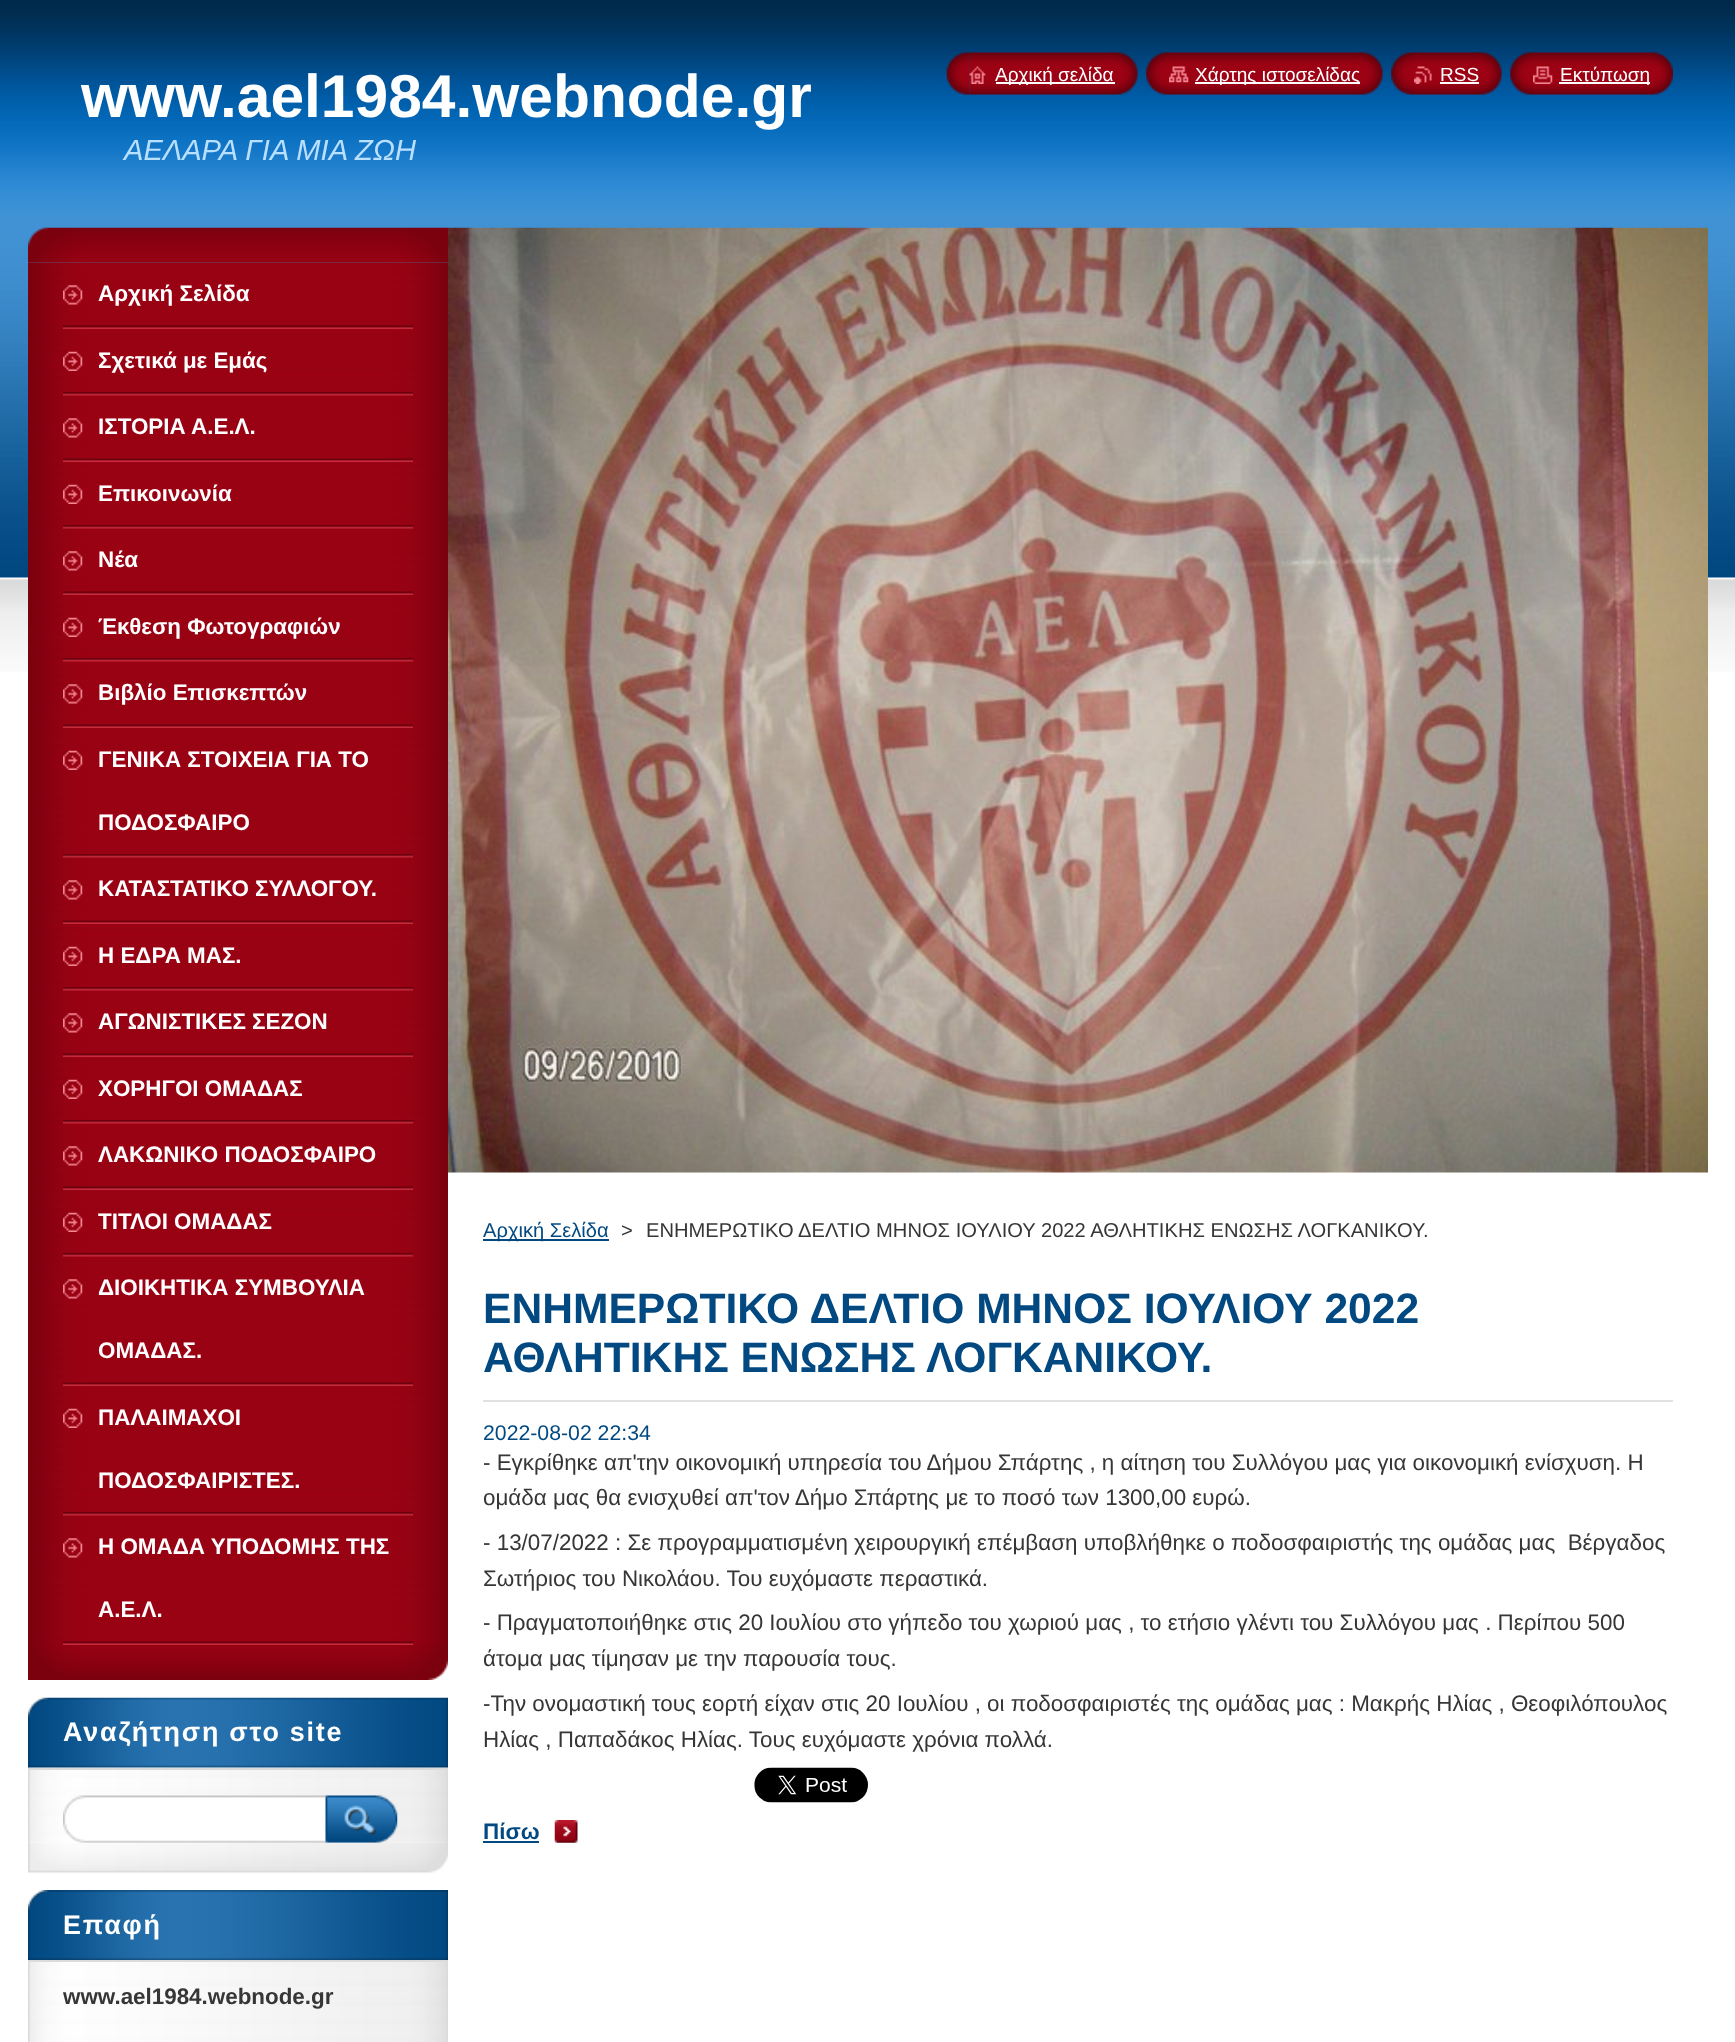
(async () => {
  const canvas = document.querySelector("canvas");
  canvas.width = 1735;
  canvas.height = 2042;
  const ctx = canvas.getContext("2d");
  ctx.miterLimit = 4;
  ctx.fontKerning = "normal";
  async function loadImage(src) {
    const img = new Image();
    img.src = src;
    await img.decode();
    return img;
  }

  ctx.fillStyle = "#ffffff";
  ctx.fillRect(0, 0, 1735, 2042);
  ctx.drawImage(await loadImage("img/1.png"), 0, 0, 1735, 672);
  ctx.drawImage(await loadImage("img/2.png"), 946, 52, 24, 43);
  ctx.drawImage(await loadImage("img/3.png"), 969, 52, 169, 43);
  ctx.drawImage(await loadImage("img/4.png"), 969, 66, 17, 18);
  ctx.fillRect(996, 82, 119, 2);
  ctx.drawImage(await loadImage("img/5.png"), 1146, 52, 23, 43);
  ctx.drawImage(await loadImage("img/6.png"), 1169, 52, 214, 43);
  ctx.drawImage(await loadImage("img/7.png"), 1169, 66, 20, 17);
  ctx.fillRect(1195, 82, 165, 2);
  ctx.drawImage(await loadImage("img/8.png"), 1391, 52, 23, 43);
  ctx.drawImage(await loadImage("img/9.png"), 1414, 52, 88, 43);
  ctx.drawImage(await loadImage("img/10.png"), 1414, 66, 18, 18);
  ctx.fillRect(1440, 82, 39, 2);
  ctx.drawImage(await loadImage("img/11.png"), 1510, 52, 23, 43);
  ctx.drawImage(await loadImage("img/12.png"), 1533, 52, 140, 43);
  ctx.drawImage(await loadImage("img/13.png"), 1533, 66, 20, 18);
  ctx.fillRect(1559, 82, 91, 2);
  ctx.drawImage(await loadImage("img/14.png"), 28, 227, 420, 36);
  ctx.drawImage(await loadImage("img/15.png"), 28, 1645, 420, 35);
  ctx.drawImage(await loadImage("img/16.png"), 28, 262, 420, 1383);
  ctx.drawImage(await loadImage("img/17.png"), 63, 325, 350, 4);
  ctx.drawImage(await loadImage("img/18.png"), 63, 285, 20, 20);
  ctx.drawImage(await loadImage("img/19.png"), 63, 392, 350, 4);
  ctx.drawImage(await loadImage("img/20.png"), 63, 351, 20, 20);
  ctx.drawImage(await loadImage("img/21.png"), 63, 458, 350, 4);
  ctx.drawImage(await loadImage("img/22.png"), 63, 418, 20, 20);
  ctx.drawImage(await loadImage("img/23.png"), 63, 525, 350, 4);
  ctx.drawImage(await loadImage("img/24.png"), 63, 484, 20, 20);
  ctx.drawImage(await loadImage("img/25.png"), 63, 591, 350, 4);
  ctx.drawImage(await loadImage("img/26.png"), 63, 551, 20, 20);
  ctx.drawImage(await loadImage("img/27.png"), 63, 658, 350, 4);
  ctx.drawImage(await loadImage("img/28.png"), 63, 617, 20, 20);
  ctx.drawImage(await loadImage("img/29.png"), 63, 724, 350, 4);
  ctx.drawImage(await loadImage("img/30.png"), 63, 684, 20, 20);
  ctx.drawImage(await loadImage("img/31.png"), 63, 854, 350, 4);
  ctx.drawImage(await loadImage("img/32.png"), 63, 750, 20, 20);
  ctx.drawImage(await loadImage("img/17.png"), 63, 920, 350, 4);
  ctx.drawImage(await loadImage("img/18.png"), 63, 880, 20, 20);
  ctx.drawImage(await loadImage("img/19.png"), 63, 987, 350, 4);
  ctx.drawImage(await loadImage("img/20.png"), 63, 946, 20, 20);
  ctx.drawImage(await loadImage("img/21.png"), 63, 1053, 350, 4);
  ctx.drawImage(await loadImage("img/33.png"), 63, 1013, 20, 20);
  ctx.drawImage(await loadImage("img/23.png"), 63, 1120, 350, 4);
  ctx.drawImage(await loadImage("img/24.png"), 63, 1079, 20, 20);
  ctx.drawImage(await loadImage("img/25.png"), 63, 1186, 350, 4);
  ctx.drawImage(await loadImage("img/26.png"), 63, 1146, 20, 20);
  ctx.drawImage(await loadImage("img/27.png"), 63, 1253, 350, 4);
  ctx.drawImage(await loadImage("img/34.png"), 63, 1212, 20, 20);
  ctx.drawImage(await loadImage("img/35.png"), 63, 1382, 350, 4);
  ctx.drawImage(await loadImage("img/36.png"), 63, 1279, 20, 20);
  ctx.drawImage(await loadImage("img/19.png"), 63, 1512, 350, 4);
  ctx.drawImage(await loadImage("img/37.png"), 63, 1408, 20, 20);
  ctx.drawImage(await loadImage("img/25.png"), 63, 1641, 350, 4);
  ctx.drawImage(await loadImage("img/22.png"), 63, 1538, 20, 20);
  ctx.drawImage(await loadImage("img/38.png"), 28, 1842, 420, 31);
  ctx.drawImage(await loadImage("img/40.png"), 28, 1767, 420, 76);
  ctx.drawImage(await loadImage("img/39.png"), 28, 1697, 420, 71);
  ctx.fillStyle = "#dbdbdb";
  ctx.fillRect(28, 1768, 420, 2);
  ctx.drawImage(await loadImage("img/41.png"), 63, 1795, 265, 48);
  ctx.drawImage(await loadImage("img/42.png"), 325, 1795, 73, 48);
  ctx.drawImage(await loadImage("img/43.png"), 28, 1890, 420, 70);
  ctx.drawImage(await loadImage("img/44.png"), 28, 1962, 420, 80);
  ctx.fillRect(28, 1960, 420, 2);
  ctx.drawImage(await loadImage("img/45.png"), 448, 227, 1260, 946);
  ctx.fillStyle = "#024981";
  ctx.fillRect(483, 1239, 126, 2);
  ctx.fillStyle = "#e1e1e1";
  ctx.fillRect(483, 1400, 1190, 2);
  ctx.drawImage(await loadImage("img/46.png"), 754, 1767, 114, 36);
  ctx.drawImage(await loadImage("img/47.png"), 554, 1820, 24, 23);
  ctx.fillStyle = "#024981";
  ctx.fillRect(483, 1841, 56, 2);
  ctx.font = "bold 60.5px Liberation Sans";
  ctx.fillStyle = "#ffffff";
  ctx.fillText("www.ael1984.webnode.gr", 81, 117);
  ctx.font = "italic 29.1px Liberation Sans";
  ctx.fillStyle = "#bae0ff";
  ctx.fillText("ΑΕΛΑΡΑ ΓΙΑ ΜΙΑ ΖΩΗ", 124, 160);
  ctx.font = "19px Liberation Sans";
  ctx.fillStyle = "#ffffff";
  for (const [text, x, y] of [
    ["Αρχική σελίδα", 995, 81],
    ["Χάρτης ιστοσελίδας", 1195, 81],
    ["RSS", 1440, 81],
    ["Εκτύπωση", 1560, 81],
  ]) {
    ctx.fillText(text, x, y);
  }
  ctx.font = "bold 22.4px Liberation Sans";
  for (const [text, x, y] of [
    ["Αρχική Σελίδα", 98, 301],
    ["Σχετικά με Eμάς", 98, 368],
    ["ΙΣΤΟΡΙΑ Α.Ε.Λ.", 98, 434],
    ["Επικοινωνία", 98, 501],
    ["Νέα", 98, 567],
    ["Έκθεση Φωτογραφιών", 98, 634],
    ["Βιβλίο Επισκεπτών", 98, 700],
    ["ΓΕΝΙΚΑ ΣΤΟΙΧΕΙΑ ΓΙΑ ΤΟ", 98, 767],
    ["ΠΟΔΟΣΦΑΙΡΟ", 98, 830],
    ["ΚΑΤΑΣΤΑΤΙΚΟ ΣΥΛΛΟΓΟΥ.", 98, 896],
    ["Η ΕΔΡΑ ΜΑΣ.", 98, 963],
    ["ΑΓΩΝΙΣΤΙΚΕΣ ΣΕΖΟΝ", 98, 1029],
    ["ΧΟΡΗΓΟΙ ΟΜΑΔΑΣ", 98, 1096],
    ["ΛΑΚΩΝΙΚΟ ΠΟΔΟΣΦΑΙΡΟ", 98, 1162],
    ["ΤΙΤΛΟΙ ΟΜΑΔΑΣ", 98, 1229],
    ["ΔΙΟΙΚΗΤΙΚΑ ΣΥΜΒΟΥΛΙΑ", 98, 1295],
    ["ΟΜΑΔΑΣ.", 98, 1358],
    ["ΠΑΛΑΙΜΑΧΟΙ", 98, 1425],
    ["ΠΟΔΟΣΦΑΙΡΙΣΤΕΣ.", 98, 1488],
    ["Η ΟΜΑΔΑ ΥΠΟΔΟΜΗΣ ΤΗΣ", 98, 1554],
    ["Α.Ε.Λ.", 98, 1617],
  ]) {
    ctx.fillText(text, x, y);
  }
  ctx.letterSpacing = "1.75px";
  ctx.font = "bold 26.9px Liberation Sans";
  ctx.fillText("Αναζήτηση στο site", 63, 1741);
  ctx.fillText("Επαφή", 63, 1934);
  ctx.letterSpacing = "0px";
  ctx.font = "bold 22.4px Liberation Sans";
  ctx.fillStyle = "#363636";
  ctx.fillText("www.ael1984.webnode.gr", 63, 2004);
  ctx.font = "20.15px Liberation Sans";
  ctx.fillStyle = "#024981";
  ctx.fillText("Αρχική Σελίδα", 483, 1237);
  ctx.fillStyle = "#363636";
  ctx.fillText(">", 621, 1237);
  ctx.fillText("ΕΝΗΜΕΡΩΤΙΚΟ ΔΕΛΤΙΟ ΜΗΝΟΣ ΙΟΥΛΙΟΥ 2022 ΑΘΛΗΤΙΚΗΣ ΕΝΩΣΗΣ ΛΟΓΚΑΝΙΚΟΥ.", 646, 1237);
  ctx.font = "bold 42.6px Liberation Sans";
  ctx.fillStyle = "#024981";
  ctx.fillText("ΕΝΗΜΕΡΩΤΙΚΟ ΔΕΛΤΙΟ ΜΗΝΟΣ ΙΟΥΛΙΟΥ 2022", 483, 1323);
  ctx.fillText("ΑΘΛΗΤΙΚΗΣ ΕΝΩΣΗΣ ΛΟΓΚΑΝΙΚΟΥ.", 483, 1372);
  ctx.font = "21.25px Liberation Sans";
  ctx.fillText("2022-08-02 22:34", 483, 1440);
  ctx.font = "22.4px Liberation Sans";
  ctx.fillStyle = "#363636";
  for (const [text, x, y] of [
    ["- Εγκρίθηκε απ'την οικονομική υπηρεσία του Δήμου Σπάρτης , η αίτηση του Συλλόγου μας για οικονομική ενίσχυση. Η", 483, 1470],
    ["ομάδα μας θα ενισχυθεί απ'τον Δήμο Σπάρτης με το ποσό των 1300,00 ευρώ.", 483, 1505],
    ["- 13/07/2022 : Σε προγραμματισμένη χειρουργική επέμβαση υποβλήθηκε ο ποδοσφαιριστής της ομάδας μας  Βέργαδος", 483, 1550],
    ["Σωτήριος του Νικολάου. Του ευχόμαστε περαστικά.", 483, 1586],
    ["- Πραγματοποιήθηκε στις 20 Ιουλίου στο γήπεδο του χωριού μας , το ετήσιο γλέντι του Συλλόγου μας . Περίπου 500", 483, 1630],
    ["άτομα μας τίμησαν με την παρουσία τους.", 483, 1666],
    ["-Την ονομαστική τους εορτή είχαν στις 20 Ιουλίου , οι ποδοσφαιριστές της ομάδας μας : Μακρής Ηλίας , Θεοφιλόπουλος", 483, 1711],
    ["Ηλίας , Παπαδάκος Ηλίας. Τους ευχόμαστε χρόνια πολλά.", 483, 1747],
  ]) {
    ctx.fillText(text, x, y);
  }
  ctx.font = "bold 22.4px Liberation Sans";
  ctx.fillStyle = "#024981";
  ctx.fillText("Πίσω", 483, 1839);
})();
